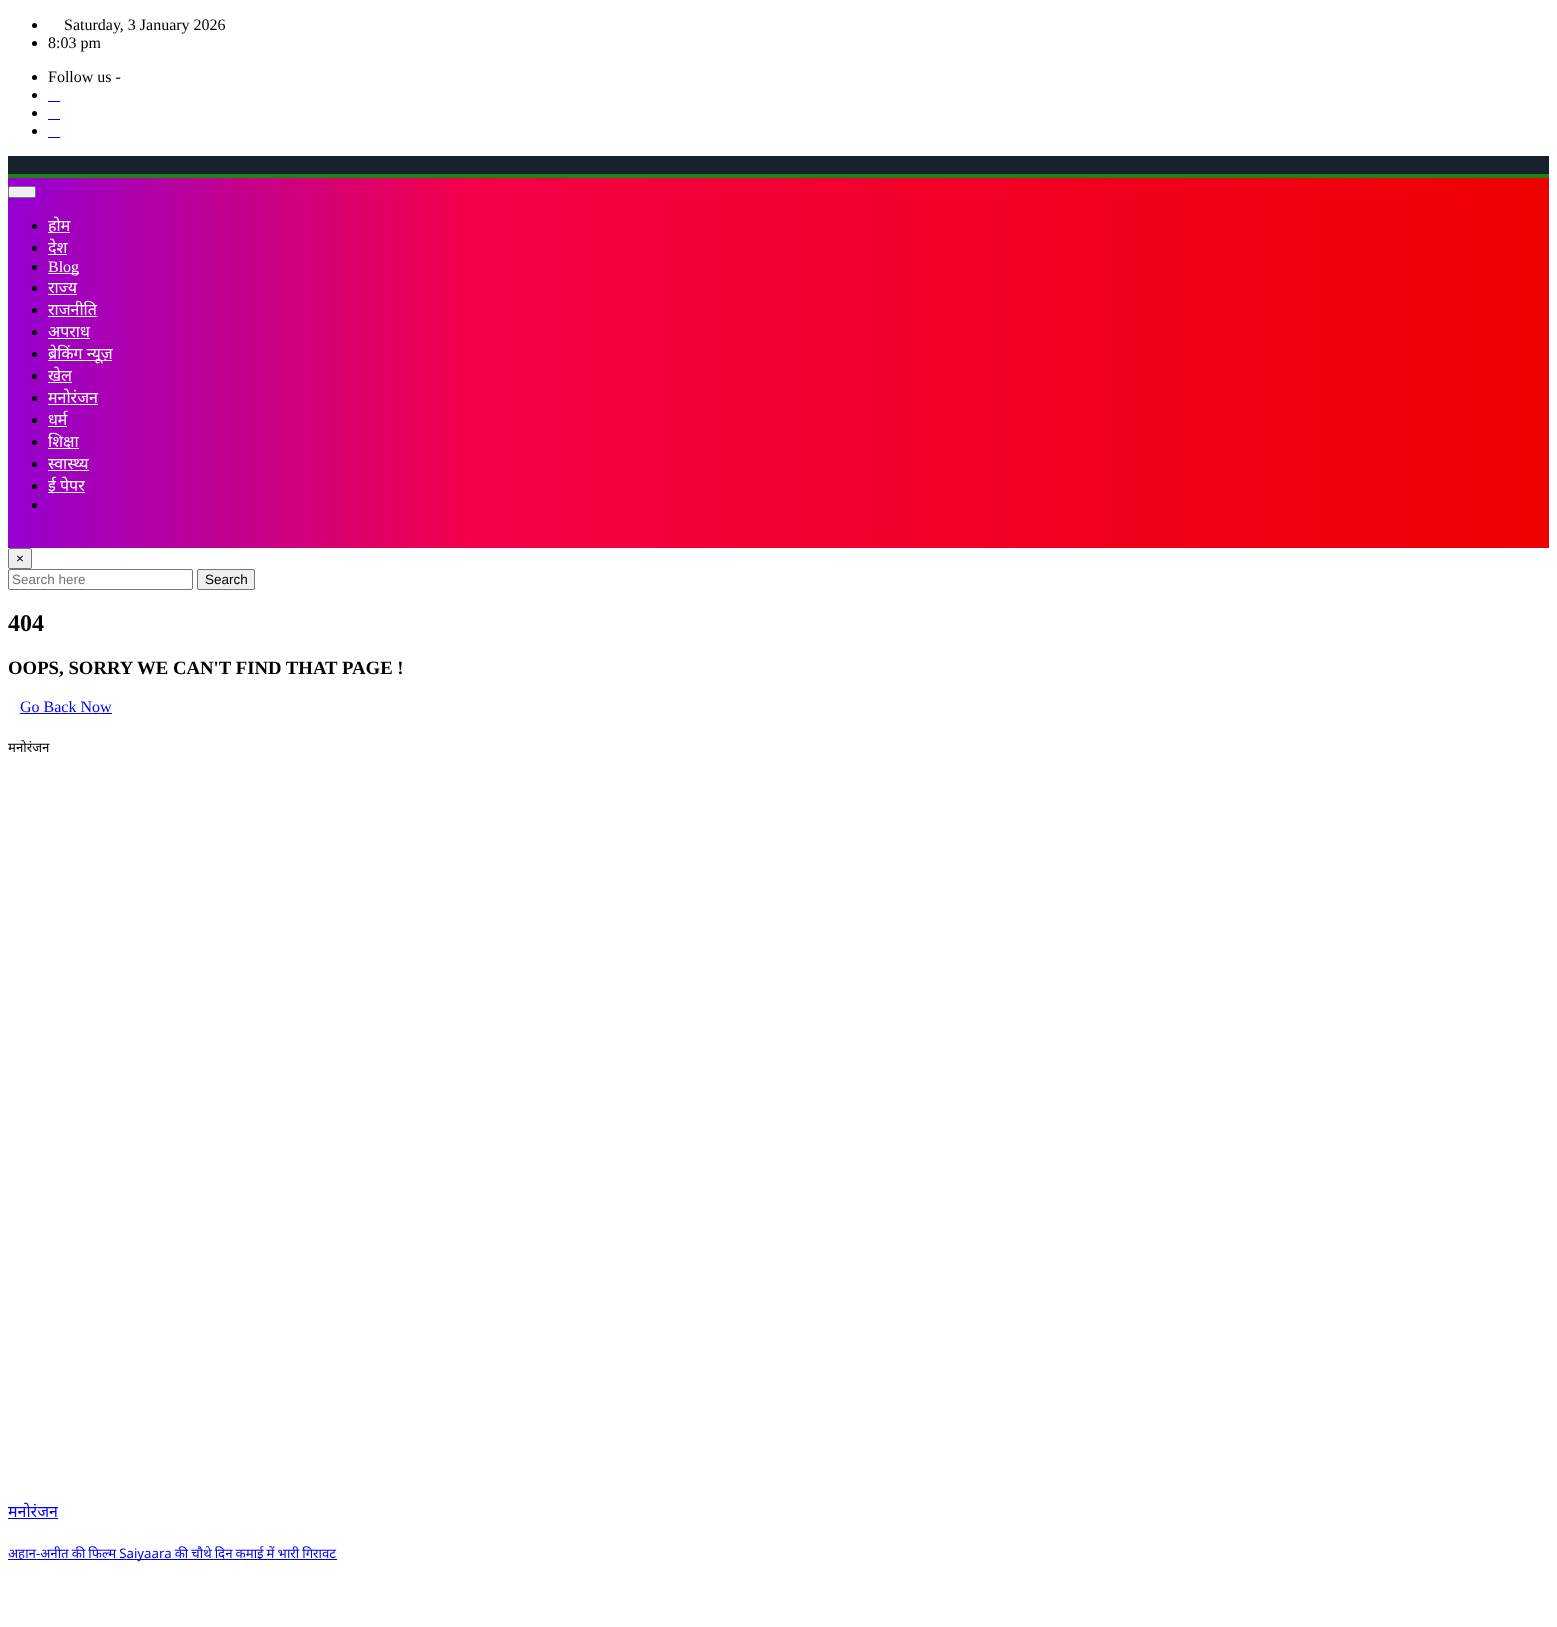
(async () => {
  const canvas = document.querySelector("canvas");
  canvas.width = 1557;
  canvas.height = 1627;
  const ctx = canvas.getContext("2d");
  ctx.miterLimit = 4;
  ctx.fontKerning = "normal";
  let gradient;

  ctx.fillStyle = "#ffffff";
  ctx.fillRect(0, 0, 1557, 1627);
  ctx.fillStyle = "#000000";
  ctx.beginPath();
  ctx.arc(34.5, 25.5, 2.5, 0, Math.PI * 2);
  ctx.fill();
  ctx.beginPath();
  ctx.arc(34.5, 43.5, 2.5, 0, Math.PI * 2);
  ctx.fill();
  ctx.beginPath();
  ctx.arc(34.5, 77.5, 2.5, 0, Math.PI * 2);
  ctx.fill();
  ctx.beginPath();
  ctx.arc(34.5, 95.5, 2.5, 0, Math.PI * 2);
  ctx.fill();
  ctx.fillStyle = "#0000ee";
  ctx.fillRect(48, 101, 12, 1);
  ctx.fillStyle = "#000000";
  ctx.beginPath();
  ctx.arc(34.5, 113.5, 2.5, 0, Math.PI * 2);
  ctx.fill();
  ctx.fillStyle = "#0000ee";
  ctx.fillRect(48, 119, 12, 1);
  ctx.fillStyle = "#000000";
  ctx.beginPath();
  ctx.arc(34.5, 131.5, 2.5, 0, Math.PI * 2);
  ctx.fill();
  for (const [x, y, w, h, color] of [
    [48, 137, 12, 1, "#0000ee"],
    [8, 156, 1541, 18, "#17212c"],
    [8, 174, 1541, 4, "#1b8415"],
  ]) {
    ctx.fillStyle = color;
    ctx.fillRect(x, y, w, h);
  }
  gradient = ctx.createLinearGradient(8, 363, 1549, 363);
  gradient.addColorStop(0, "#9500d1");
  gradient.addColorStop(0.3, "#f40049");
  gradient.addColorStop(1, "#ef0000");
  ctx.fillStyle = gradient;
  ctx.fillRect(8, 178, 1541, 370);
  ctx.fillStyle = "#efefef";
  ctx.beginPath();
  ctx.roundRect(8.5, 186.5, 27, 11, 1.5);
  ctx.fill();
  ctx.strokeStyle = "#767676";
  ctx.stroke();
  ctx.fillStyle = "#000000";
  ctx.beginPath();
  ctx.arc(34.5, 226.5, 2.5, 0, Math.PI * 2);
  ctx.fill();
  ctx.fillStyle = "#ffffff";
  ctx.fillRect(48, 232, 22, 1);
  ctx.fillStyle = "#000000";
  ctx.beginPath();
  ctx.arc(34.5, 248.5, 2.5, 0, Math.PI * 2);
  ctx.fill();
  ctx.fillStyle = "#ffffff";
  ctx.fillRect(48, 254, 19, 1);
  ctx.fillStyle = "#000000";
  ctx.beginPath();
  ctx.arc(34.5, 267.5, 2.5, 0, Math.PI * 2);
  ctx.fill();
  ctx.fillStyle = "#ffffff";
  ctx.fillRect(48, 273, 31, 1);
  ctx.fillStyle = "#000000";
  ctx.beginPath();
  ctx.arc(34.5, 288.5, 2.5, 0, Math.PI * 2);
  ctx.fill();
  ctx.fillStyle = "#ffffff";
  ctx.fillRect(48, 294, 29, 1);
  ctx.fillStyle = "#000000";
  ctx.beginPath();
  ctx.arc(34.5, 310.5, 2.5, 0, Math.PI * 2);
  ctx.fill();
  ctx.fillStyle = "#ffffff";
  ctx.fillRect(48, 316, 49, 1);
  ctx.fillStyle = "#000000";
  ctx.beginPath();
  ctx.arc(34.5, 332.5, 2.5, 0, Math.PI * 2);
  ctx.fill();
  ctx.fillStyle = "#ffffff";
  ctx.fillRect(48, 338, 42, 1);
  ctx.fillStyle = "#000000";
  ctx.beginPath();
  ctx.arc(34.5, 354.5, 2.5, 0, Math.PI * 2);
  ctx.fill();
  ctx.fillStyle = "#ffffff";
  ctx.fillRect(48, 360, 64, 1);
  ctx.fillStyle = "#000000";
  ctx.beginPath();
  ctx.arc(34.5, 376.5, 2.5, 0, Math.PI * 2);
  ctx.fill();
  ctx.fillStyle = "#ffffff";
  ctx.fillRect(48, 382, 24, 1);
  ctx.fillStyle = "#000000";
  ctx.beginPath();
  ctx.arc(34.5, 398.5, 2.5, 0, Math.PI * 2);
  ctx.fill();
  ctx.fillStyle = "#ffffff";
  ctx.fillRect(48, 404, 50, 1);
  ctx.fillStyle = "#000000";
  ctx.beginPath();
  ctx.arc(34.5, 420.5, 2.5, 0, Math.PI * 2);
  ctx.fill();
  ctx.fillStyle = "#ffffff";
  ctx.fillRect(48, 426, 19, 1);
  ctx.fillStyle = "#000000";
  ctx.beginPath();
  ctx.arc(34.5, 442.5, 2.5, 0, Math.PI * 2);
  ctx.fill();
  ctx.fillStyle = "#ffffff";
  ctx.fillRect(48, 448, 31, 1);
  ctx.fillStyle = "#000000";
  ctx.beginPath();
  ctx.arc(34.5, 464.5, 2.5, 0, Math.PI * 2);
  ctx.fill();
  ctx.fillStyle = "#ffffff";
  ctx.fillRect(48, 470, 41, 1);
  ctx.fillStyle = "#000000";
  ctx.beginPath();
  ctx.arc(34.5, 486.5, 2.5, 0, Math.PI * 2);
  ctx.fill();
  ctx.fillStyle = "#ffffff";
  ctx.fillRect(48, 492, 37, 1);
  ctx.fillStyle = "#000000";
  ctx.beginPath();
  ctx.arc(34.5, 505.5, 2.5, 0, Math.PI * 2);
  ctx.fill();
  ctx.fillStyle = "#efefef";
  ctx.beginPath();
  ctx.roundRect(8.5, 548.5, 23, 20, 1.5);
  ctx.fill();
  ctx.stroke();
  ctx.beginPath();
  ctx.roundRect(8.5, 569.5, 184, 20, 1.5);
  ctx.stroke();
  ctx.beginPath();
  ctx.roundRect(197.5, 569.5, 57, 20, 1.5);
  ctx.fill();
  ctx.stroke();
  for (const [x, y, w, h, color] of [
    [20, 713, 92, 1, "#0000ee"],
    [8, 1518, 50, 1, "#0000ee"],
    [8, 1559, 329, 1, "#0000ee"],
  ]) {
    ctx.fillStyle = color;
    ctx.fillRect(x, y, w, h);
  }
  ctx.font = "16px Liberation Serif";
  ctx.fillStyle = "#000000";
  for (const [text, x, y] of [
    ["Saturday, 3 January 2026", 64, 30],
    ["8:03 pm", 48, 48],
    ["Follow us -", 48, 82],
  ]) {
    ctx.fillText(text, x, y);
  }
  ctx.font = "16px Noto Sans";
  ctx.fillStyle = "#ffffff";
  ctx.fillText("होम", 48, 231);
  ctx.fillText("देश", 48, 253);
  ctx.font = "16px Liberation Serif";
  ctx.fillText("Blog", 48, 272);
  ctx.font = "16px Noto Sans";
  for (const [text, x, y] of [
    ["राज्य", 48, 293],
    ["राजनीति", 48, 315],
    ["अपराध", 48, 337],
    ["ब्रेकिंग न्यूज़", 48, 359],
    ["खेल", 48, 381],
    ["मनोरंजन", 48, 403],
    ["धर्म", 48, 425],
    ["शिक्षा", 48, 447],
    ["स्वास्थ्य", 48, 469],
    ["ई पेपर", 48, 491],
  ]) {
    ctx.fillText(text, x, y);
  }
  ctx.font = "13.5px Liberation Sans";
  ctx.fillStyle = "#000000";
  ctx.fillText("×", 16, 563);
  ctx.fillStyle = "#757575";
  ctx.fillText("Search here", 12, 584);
  ctx.fillStyle = "#000000";
  ctx.fillText("Search", 205, 584);
  ctx.font = "bold 24px Liberation Serif";
  ctx.fillText("404", 8, 631);
  ctx.font = "bold 18.75px Liberation Serif";
  ctx.fillText("OOPS, SORRY WE CAN'T FIND THAT PAGE !", 8, 674);
  ctx.font = "16px Liberation Serif";
  ctx.fillStyle = "#0000ee";
  ctx.fillText("Go Back Now", 20, 712);
  ctx.font = "13.25px Noto Sans";
  ctx.fillStyle = "#000000";
  ctx.fillText("मनोरंजन", 8, 752);
  ctx.font = "16px Noto Sans";
  ctx.fillStyle = "#0000ee";
  ctx.fillText("मनोरंजन", 8, 1517);
  ctx.wordSpacing = "-0.4px";
  ctx.font = "13.25px Noto Sans";
  ctx.fillText("अहान-अनीत की फिल्म Saiyaara की चौथे दिन कमाई में भारी गिरावट", 8, 1558);
})();
